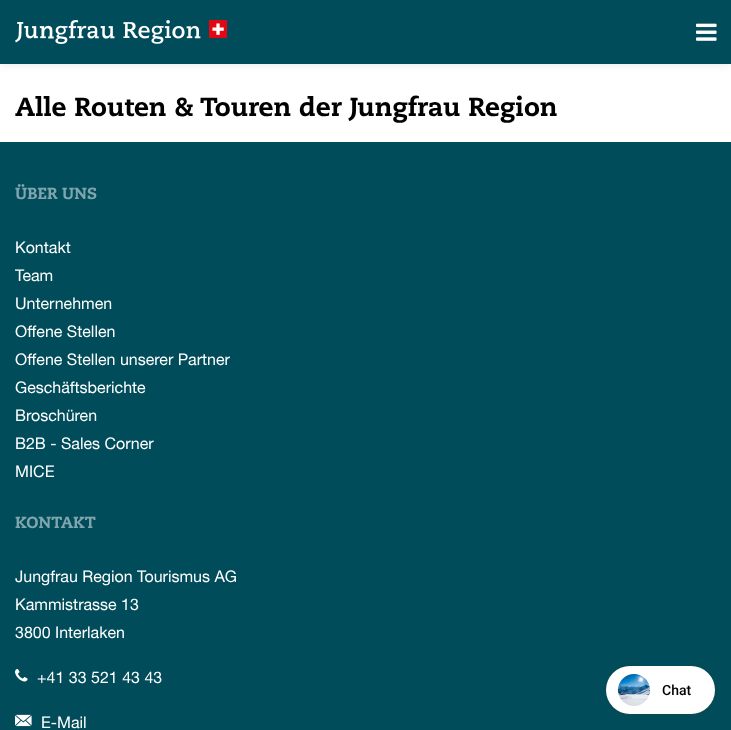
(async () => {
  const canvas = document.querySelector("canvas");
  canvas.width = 731;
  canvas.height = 730;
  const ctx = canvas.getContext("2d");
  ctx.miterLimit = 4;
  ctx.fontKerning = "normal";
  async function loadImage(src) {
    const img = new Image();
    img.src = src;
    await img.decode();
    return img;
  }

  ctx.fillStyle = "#ffffff";
  ctx.fillRect(0, 0, 731, 730);
  ctx.fillStyle = "rgba(0, 0, 0, 0.1)";
  ctx.filter = "blur(5px)";
  ctx.beginPath();
  ctx.rect(0, 0, 731, 64);
  ctx.fill();
  ctx.filter = "none";
  ctx.fillStyle = "#014c5a";
  ctx.fillRect(0, 0, 731, 64);
  ctx.drawImage(await loadImage("img/1.png"), 15, 20, 212, 24);
  ctx.drawImage(await loadImage("img/2.png"), 696, 23, 21, 18);
  ctx.fillRect(0, 142, 731, 588);
  ctx.drawImage(await loadImage("img/3.png"), 15, 669, 13, 13);
  ctx.drawImage(await loadImage("img/4.png"), 15, 714, 17, 13);
  ctx.fillStyle = "rgba(60, 64, 67, 0.3)";
  ctx.filter = "blur(1px)";
  ctx.beginPath();
  ctx.roundRect(606, 667, 109, 48, 24);
  ctx.fill();
  ctx.filter = "none";
  ctx.fillStyle = "#ffffff";
  ctx.beginPath();
  ctx.roundRect(606, 666, 109, 48, 24);
  ctx.fill();
  ctx.drawImage(await loadImage("img/5.png"), 618, 674, 32, 32);
  ctx.font = "900 26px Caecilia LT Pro";
  ctx.fillStyle = "#000000";
  ctx.fillText("Alle Routen & Touren der Jungfrau Region", 15, 116);
  ctx.font = "900 16px Caecilia LT Pro";
  ctx.fillStyle = "#80a6ad";
  ctx.fillText("ÜBER UNS", 15, 199);
  ctx.font = "16px 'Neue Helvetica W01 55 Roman'";
  ctx.fillStyle = "#ffffff";
  for (const [text, x, y] of [
    ["Kontakt", 15, 253],
    ["Team", 15, 281],
    ["Unternehmen", 15, 309],
    ["Offene Stellen", 15, 337],
    ["Offene Stellen unserer Partner", 15, 365],
    ["Geschäftsberichte", 15, 393],
    ["Broschüren", 15, 421],
    ["B2B - Sales Corner", 15, 449],
    ["MICE", 15, 477],
  ]) {
    ctx.fillText(text, x, y);
  }
  ctx.font = "900 16px Caecilia LT Pro";
  ctx.fillStyle = "#80a6ad";
  ctx.fillText("KONTAKT", 15, 528);
  ctx.font = "16px 'Neue Helvetica W01 55 Roman'";
  ctx.fillStyle = "#ffffff";
  for (const [text, x, y] of [
    ["Jungfrau Region Tourismus AG", 15, 582],
    ["Kammistrasse 13", 15, 610],
    ["3800 Interlaken", 15, 638],
    ["+41 33 521 43 43", 37, 683],
    ["E-Mail", 41, 728],
  ]) {
    ctx.fillText(text, x, y);
  }
  ctx.font = "500 14px Roboto";
  ctx.fillStyle = "#000000";
  ctx.fillText("Chat", 662, 695);
})();
